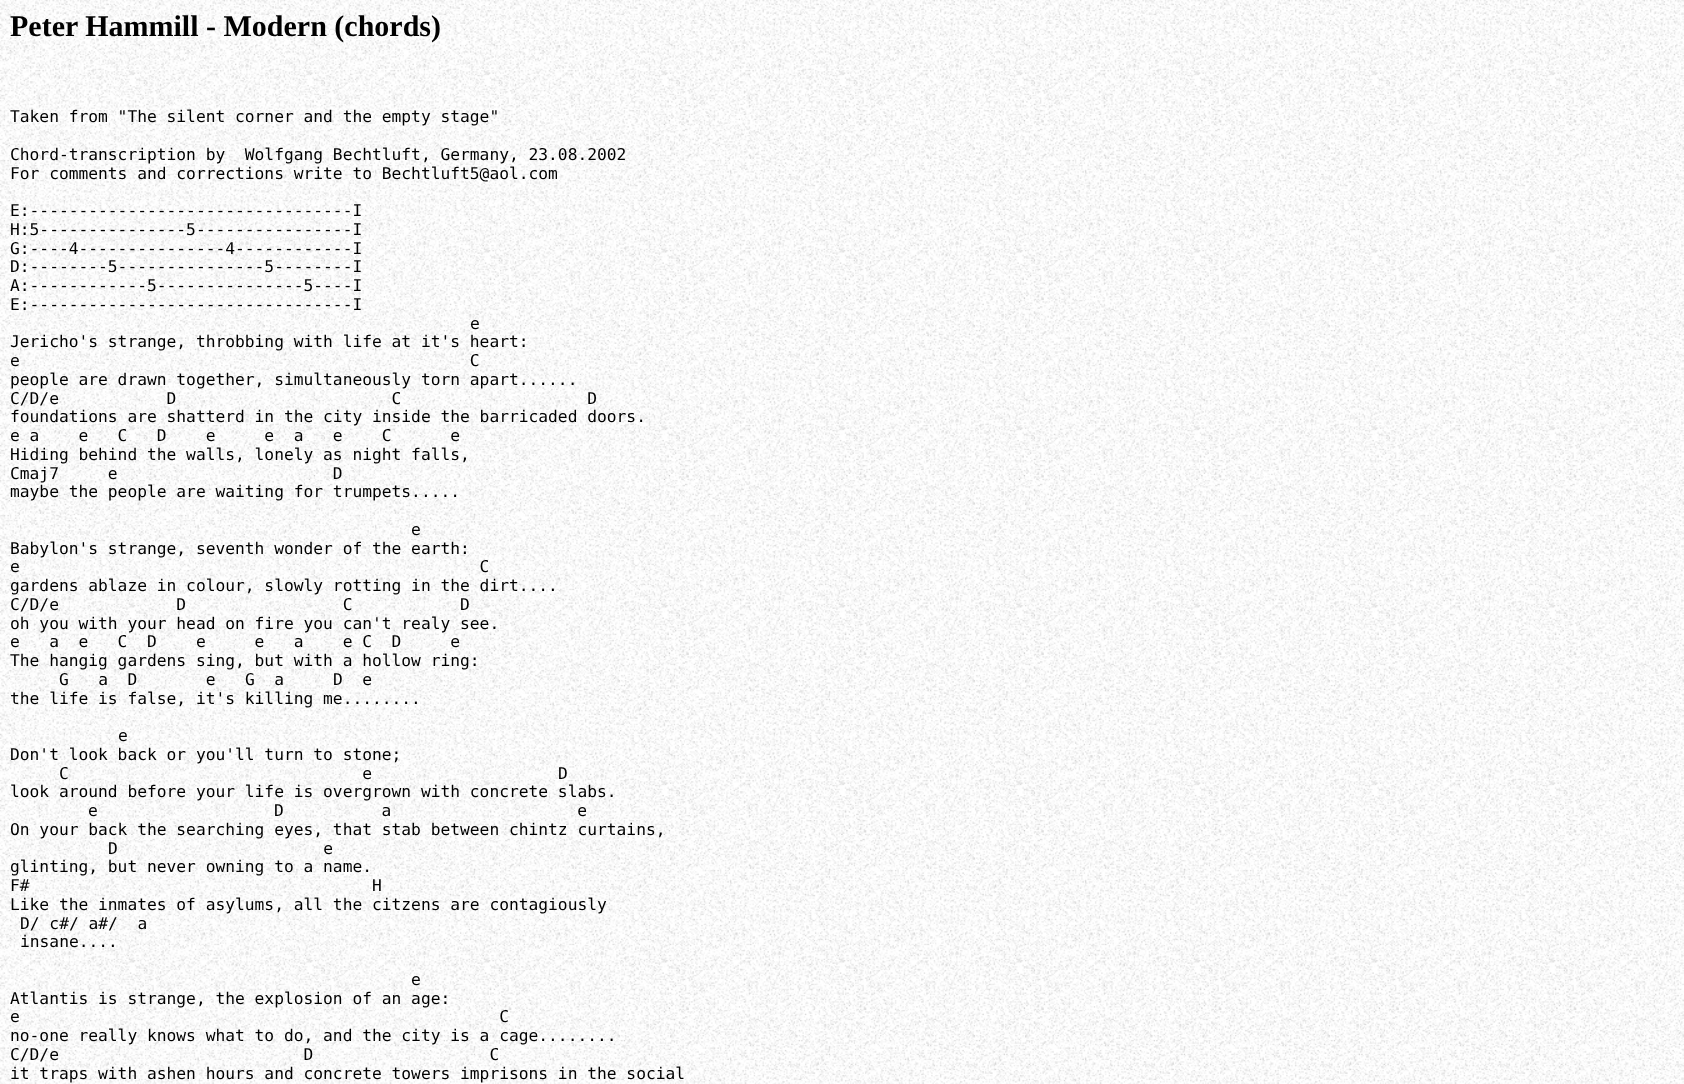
(async () => {
  const canvas = document.querySelector("canvas");
  canvas.width = 1684;
  canvas.height = 1084;
  const ctx = canvas.getContext("2d");
  ctx.miterLimit = 4;
  ctx.fontKerning = "normal";
  async function loadImage(src) {
    const img = new Image();
    img.src = src;
    await img.decode();
    return img;
  }

  ctx.fillStyle = "#ffffff";
  ctx.fillRect(0, 0, 1684, 1084);
  ctx.drawImage(await loadImage("img/1.png"), 0, 0, 1684, 1084);
  ctx.font = "bold 30px Liberation Serif";
  ctx.fillStyle = "#000000";
  ctx.fillText("Peter Hammill - Modern (chords)", 10, 36);
  ctx.font = "16.25px DejaVu Sans Mono";
  for (const [text, x, y] of [
    ["Taken from \"The silent corner and the empty stage\"", 10, 122],
    ["Chord-transcription by  Wolfgang Bechtluft, Germany, 23.08.2002", 10, 160],
    ["For comments and corrections write to Bechtluft5@aol.com", 10, 179],
    ["E:---------------------------------I", 10, 216],
    ["H:5---------------5----------------I", 10, 235],
    ["G:----4---------------4------------I", 10, 254],
    ["D:--------5---------------5--------I", 10, 272],
    ["A:------------5---------------5----I", 10, 291],
    ["E:---------------------------------I", 10, 310],
    ["e", 470, 329],
    ["Jericho's strange, throbbing with life at it's heart:", 10, 347],
    ["e                                              C", 10, 366],
    ["people are drawn together, simultaneously torn apart......", 10, 385],
    ["C/D/e           D                      C                   D", 10, 404],
    ["foundations are shatterd in the city inside the barricaded doors.", 10, 422],
    ["e a    e   C   D    e     e  a   e    C      e", 10, 441],
    ["Hiding behind the walls, lonely as night falls,", 10, 460],
    ["Cmaj7     e                      D", 10, 479],
    ["maybe the people are waiting for trumpets.....", 10, 497],
    ["e", 411, 535],
    ["Babylon's strange, seventh wonder of the earth:", 10, 554],
    ["e                                               C", 10, 572],
    ["gardens ablaze in colour, slowly rotting in the dirt....", 10, 591],
    ["C/D/e            D                C           D", 10, 610],
    ["oh you with your head on fire you can't realy see.", 10, 629],
    ["e   a  e   C  D    e     e   a    e C  D     e", 10, 647],
    ["The hangig gardens sing, but with a hollow ring:", 10, 666],
    ["G   a  D       e   G  a     D  e", 59, 685],
    ["the life is false, it's killing me........", 10, 704],
    ["e", 118, 741],
    ["Don't look back or you'll turn to stone;", 10, 760],
    ["C                              e                   D", 59, 779],
    ["look around before your life is overgrown with concrete slabs.", 10, 797],
    ["e                  D          a                   e", 88, 816],
    ["On your back the searching eyes, that stab between chintz curtains,", 10, 835],
    ["D                     e", 108, 854],
    ["glinting, but never owning to a name.", 10, 872],
    ["F#                                   H", 10, 891],
    ["Like the inmates of asylums, all the citzens are contagiously", 10, 910],
    ["D/ c#/ a#/  a", 20, 929],
    ["insane....", 20, 947],
    ["e", 411, 985],
    ["Atlantis is strange, the explosion of an age:", 10, 1004],
    ["e                                                 C", 10, 1022],
    ["no-one really knows what to do, and the city is a cage........", 10, 1041],
    ["C/D/e                         D                  C", 10, 1060],
    ["it traps with ashen hours and concrete towers imprisons in the social", 10, 1079],
  ]) {
    ctx.fillText(text, x, y);
  }
})();
